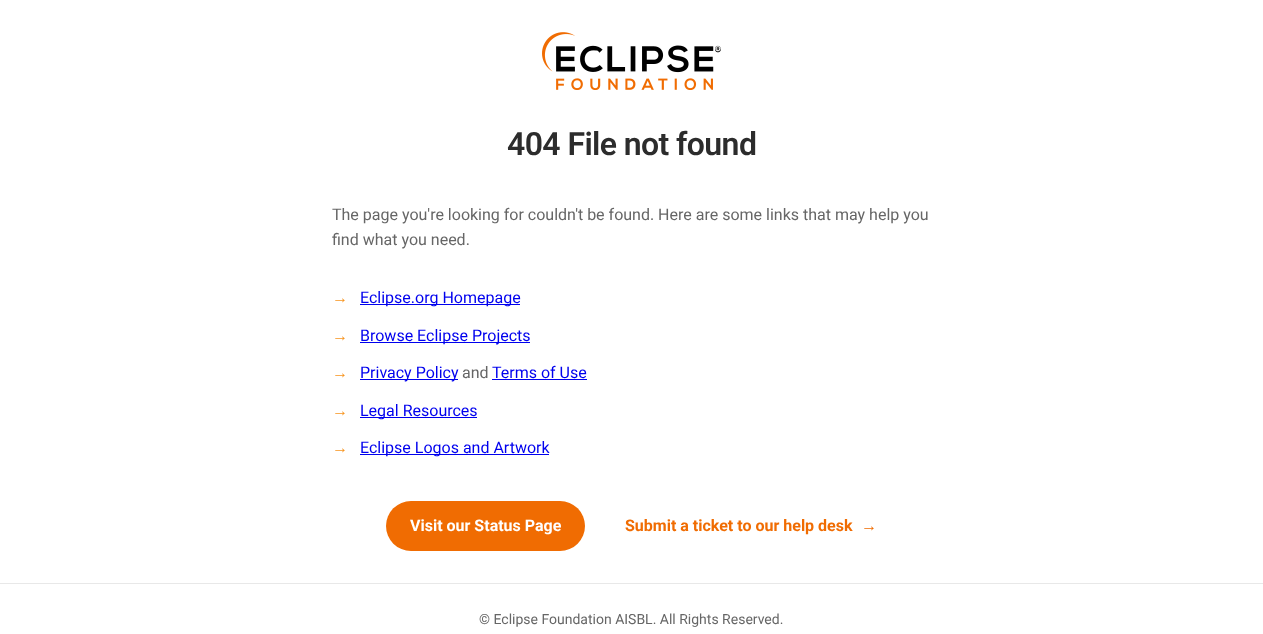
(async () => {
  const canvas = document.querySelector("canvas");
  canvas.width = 1263;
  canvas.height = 634;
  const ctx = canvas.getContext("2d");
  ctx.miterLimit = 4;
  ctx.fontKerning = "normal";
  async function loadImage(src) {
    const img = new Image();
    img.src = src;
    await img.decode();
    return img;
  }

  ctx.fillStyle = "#ffffff";
  ctx.fillRect(0, 0, 1263, 634);
  ctx.drawImage(await loadImage("img/1.png"), 542, 32, 179, 58);
  for (const [x, y, w, h, color] of [
    [360, 304, 160, 1, "#0000ee"],
    [360, 342, 170, 1, "#0000ee"],
    [360, 379, 98, 1, "#0000ee"],
    [492, 379, 95, 1, "#0000ee"],
    [360, 417, 117, 1, "#0000ee"],
    [360, 454, 189, 1, "#0000ee"],
  ]) {
    ctx.fillStyle = color;
    ctx.fillRect(x, y, w, h);
  }
  ctx.fillStyle = "#f06c02";
  ctx.beginPath();
  ctx.roundRect(386, 501, 199, 50, 25);
  ctx.fill();
  ctx.fillStyle = "#e8e8e8";
  ctx.fillRect(0, 583, 1263, 1);
  ctx.letterSpacing = "-0.6px";
  ctx.font = "600 32px Roboto";
  ctx.fillStyle = "#2c2c2c";
  ctx.fillText("404 File not found", 507, 155);
  ctx.letterSpacing = "0px";
  ctx.font = "16px Roboto";
  ctx.fillStyle = "#666666";
  ctx.fillText("The page you're looking for couldn't be found. Here are some links that may help you", 332, 220);
  ctx.fillText("find what you need.", 332, 245);
  ctx.font = "bold 16px Liberation Sans";
  ctx.fillStyle = "#f7941e";
  ctx.fillText("→", 332, 303);
  ctx.font = "16px Roboto";
  ctx.fillStyle = "#0000ee";
  ctx.fillText("Eclipse.org Homepage", 360, 303);
  ctx.font = "bold 16px Liberation Sans";
  ctx.fillStyle = "#f7941e";
  ctx.fillText("→", 332, 341);
  ctx.font = "16px Roboto";
  ctx.fillStyle = "#0000ee";
  ctx.fillText("Browse Eclipse Projects", 360, 341);
  ctx.font = "bold 16px Liberation Sans";
  ctx.fillStyle = "#f7941e";
  ctx.fillText("→", 332, 378);
  ctx.font = "16px Roboto";
  ctx.fillStyle = "#0000ee";
  ctx.fillText("Privacy Policy", 360, 378);
  ctx.fillStyle = "#666666";
  ctx.fillText("and", 462, 378);
  ctx.fillStyle = "#0000ee";
  ctx.fillText("Terms of Use", 492, 378);
  ctx.font = "bold 16px Liberation Sans";
  ctx.fillStyle = "#f7941e";
  ctx.fillText("→", 332, 416);
  ctx.font = "16px Roboto";
  ctx.fillStyle = "#0000ee";
  ctx.fillText("Legal Resources", 360, 416);
  ctx.font = "bold 16px Liberation Sans";
  ctx.fillStyle = "#f7941e";
  ctx.fillText("→", 332, 453);
  ctx.font = "16px Roboto";
  ctx.fillStyle = "#0000ee";
  ctx.fillText("Eclipse Logos and Artwork", 360, 453);
  ctx.font = "bold 16px Roboto";
  ctx.fillStyle = "#ffffff";
  ctx.fillText("Visit our Status Page", 410, 531);
  ctx.fillStyle = "#f06c02";
  ctx.fillText("Submit a ticket to our help desk", 625, 531);
  ctx.font = "bold 16px Liberation Sans";
  ctx.fillText("→", 861, 531);
  ctx.font = "14px Roboto";
  ctx.fillStyle = "#666666";
  ctx.fillText("© Eclipse Foundation AISBL. All Rights Reserved.", 479, 624);
})();
